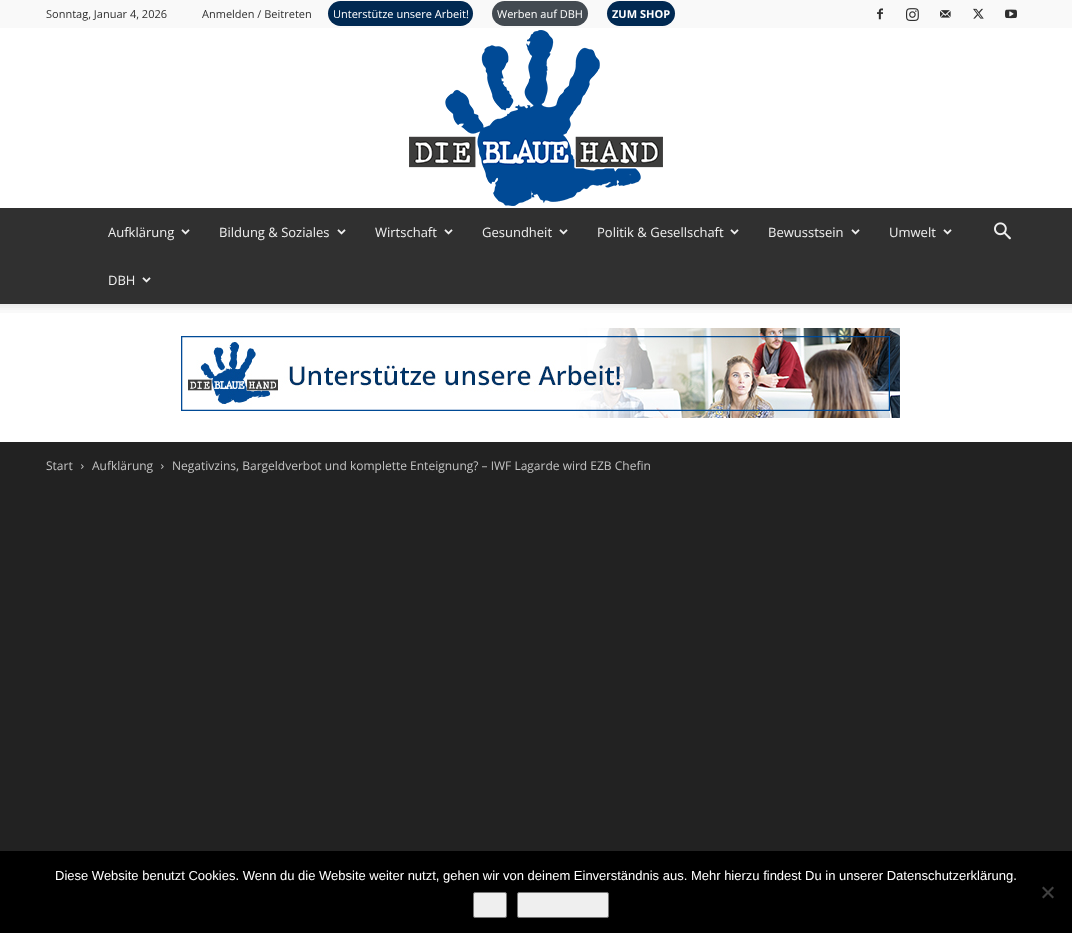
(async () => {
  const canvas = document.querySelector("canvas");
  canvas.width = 1072;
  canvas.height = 933;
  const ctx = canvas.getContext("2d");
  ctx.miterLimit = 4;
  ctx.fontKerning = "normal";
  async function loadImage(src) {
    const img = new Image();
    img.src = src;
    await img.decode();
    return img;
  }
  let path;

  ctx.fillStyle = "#222222";
  ctx.fillRect(0, 0, 1072, 933);
  ctx.fillStyle = "#f9f9f9";
  ctx.fillRect(0, 0, 1072, 28);
  ctx.fillStyle = "#002952";
  ctx.beginPath();
  ctx.roundRect(328, 1, 145, 25, 12.5);
  ctx.fill();
  ctx.fillStyle = "#434a51";
  ctx.beginPath();
  ctx.roundRect(492, 1, 96, 25, 12.5);
  ctx.fill();
  ctx.fillStyle = "#002952";
  ctx.beginPath();
  ctx.roundRect(607, 1, 68, 25, 12.5);
  ctx.fill();
  ctx.drawImage(await loadImage("img/1.png"), 877, 8, 6, 12);
  ctx.drawImage(await loadImage("img/2.png"), 906, 8, 13, 13);
  ctx.drawImage(await loadImage("img/3.png"), 940, 10, 11, 8);
  ctx.drawImage(await loadImage("img/4.png"), 973, 8, 11, 11);
  ctx.drawImage(await loadImage("img/5.png"), 1005, 9, 12, 10);
  ctx.fillStyle = "#ffffff";
  ctx.fillRect(0, 28, 1072, 180);
  ctx.drawImage(await loadImage("img/6.png"), 409, 30, 254, 176);
  ctx.fillStyle = "#303030";
  ctx.fillRect(0, 208, 1072, 96);
  ctx.drawImage(await loadImage("img/7.png"), 181, 229, 9, 6);
  ctx.drawImage(await loadImage("img/7.png"), 337, 229, 9, 6);
  ctx.drawImage(await loadImage("img/7.png"), 444, 229, 9, 6);
  ctx.drawImage(await loadImage("img/7.png"), 559, 229, 9, 6);
  ctx.drawImage(await loadImage("img/7.png"), 730, 229, 9, 6);
  ctx.drawImage(await loadImage("img/7.png"), 851, 229, 9, 6);
  ctx.drawImage(await loadImage("img/7.png"), 943, 229, 9, 6);
  ctx.drawImage(await loadImage("img/7.png"), 142, 277, 9, 6);
  ctx.drawImage(await loadImage("img/8.png"), 994, 222, 17, 18);
  ctx.fillStyle = "#ffffff";
  ctx.fillRect(0, 304, 1072, 138);
  ctx.drawImage(await loadImage("img/9.png"), 0, 304, 1072, 9);
  ctx.drawImage(await loadImage("img/10.png"), 181, 328, 719, 90);
  ctx.drawImage(await loadImage("img/11.png"), 81, 464, 3, 5);
  ctx.drawImage(await loadImage("img/11.png"), 161, 464, 3, 5);
  ctx.fillStyle = "#000000";
  ctx.fillRect(0, 851, 1072, 82);
  ctx.fillStyle = "#efefef";
  ctx.beginPath();
  ctx.roundRect(473.5, 892.5, 33, 25, 1.5);
  ctx.fill();
  ctx.strokeStyle = "#767676";
  ctx.stroke();
  ctx.beginPath();
  ctx.roundRect(517.5, 892.5, 91, 25, 1.5);
  ctx.fill();
  ctx.stroke();
  ctx.fillStyle = "#404040";
  path = new Path2D("M1052.5 886.5L1054 888L1043.5 898.5L1042 897Z");
  ctx.fill(path);
  path = new Path2D("M1042 888L1043.5 886.5L1054 897L1052.5 898.5Z");
  ctx.fill(path);
  ctx.font = "11px Open Sans";
  ctx.fillStyle = "#2f2f2f";
  ctx.fillText("Sonntag, Januar 4, 2026", 46, 18);
  ctx.fillText("Anmelden / Beitreten", 202, 18);
  ctx.fillStyle = "#ffffff";
  ctx.fillText("Unterstütze unsere Arbeit!", 333, 18);
  ctx.fillText("Werben auf DBH", 497, 18);
  ctx.font = "bold 11px Open Sans";
  ctx.fillText("ZUM SHOP", 612, 18);
  ctx.font = "13px Open Sans";
  ctx.fillStyle = "#efefef";
  for (const [text, x, y] of [
    ["Aufklärung", 108, 237],
    ["Bildung & Soziales", 219, 237],
    ["Wirtschaft", 375, 237],
    ["Gesundheit", 482, 237],
    ["Politik & Gesellschaft", 597, 237],
    ["Bewusstsein", 768, 237],
    ["Umwelt", 889, 237],
    ["DBH", 108, 285],
  ]) {
    ctx.fillText(text, x, y);
  }
  ctx.font = "12px Open Sans";
  ctx.fillStyle = "#c3c3c3";
  for (const [text, x, y] of [
    ["Start", 46, 470],
    ["Aufklärung", 92, 470],
    ["Negativzins, Bargeldverbot und komplette Enteignung? – IWF Lagarde wird EZB Chefin", 172, 470],
  ]) {
    ctx.fillText(text, x, y);
  }
  ctx.font = "13px Liberation Sans";
  ctx.fillStyle = "#ffffff";
  ctx.fillText("Diese Website benutzt Cookies. Wenn du die Website weiter nutzt, gehen wir von deinem Einverständnis aus. Mehr hierzu findest Du in unserer Datenschutzerklärung.", 55, 880);
})();
